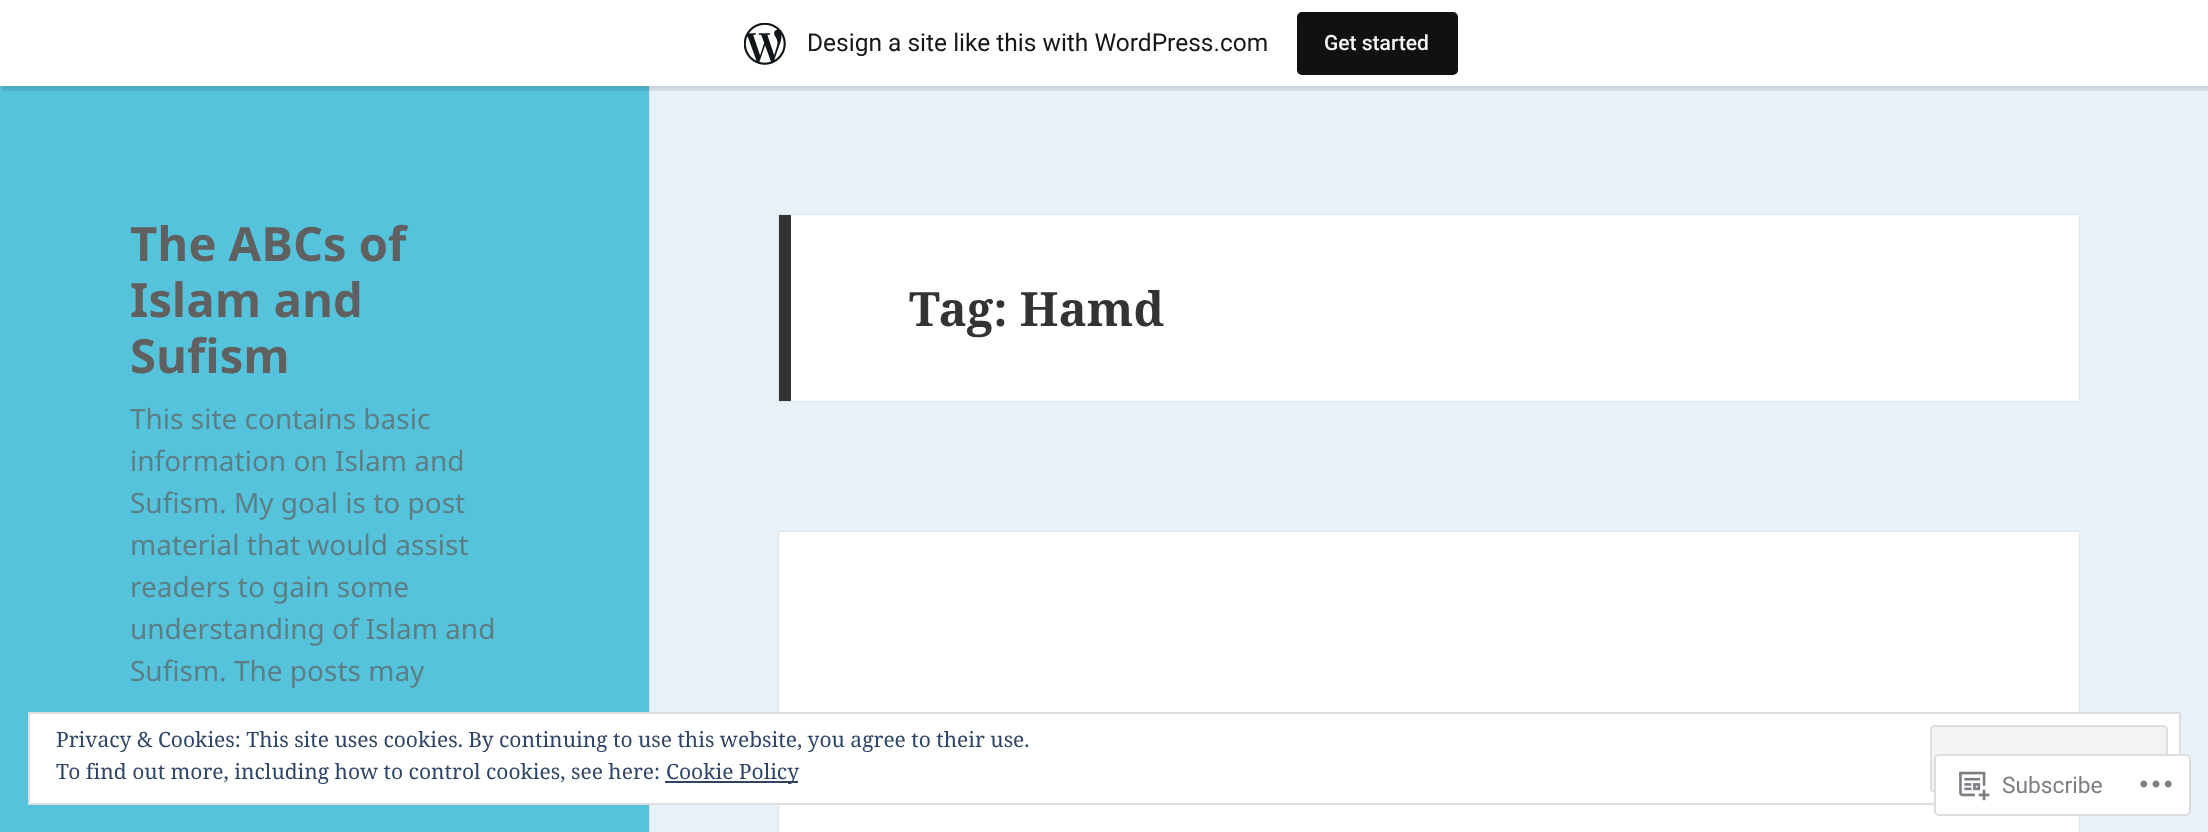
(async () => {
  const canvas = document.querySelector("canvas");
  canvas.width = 2208;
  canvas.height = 832;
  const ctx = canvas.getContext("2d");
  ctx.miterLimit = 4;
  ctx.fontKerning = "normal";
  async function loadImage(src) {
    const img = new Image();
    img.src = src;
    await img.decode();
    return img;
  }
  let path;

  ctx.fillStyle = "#e9f2f9";
  ctx.fillRect(0, 0, 2208, 832);
  ctx.fillStyle = "rgba(0, 0, 0, 0.15)";
  ctx.filter = "blur(1px)";
  ctx.beginPath();
  ctx.rect(0, 0, 649, 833);
  ctx.fill();
  ctx.filter = "none";
  ctx.fillStyle = "#55c3dc";
  ctx.fillRect(0, 86, 649, 746);
  ctx.fillStyle = "rgba(0, 0, 0, 0.05)";
  ctx.filter = "blur(2px)";
  ctx.beginPath();
  ctx.rect(0, 2, 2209, 86);
  ctx.fill();
  ctx.filter = "none";
  ctx.fillStyle = "rgba(0, 0, 0, 0.08)";
  path = new Path2D("M2 86V91H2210V5H2208V86Z");
  ctx.fill(path);
  ctx.fillStyle = "#ffffff";
  ctx.fillRect(0, 0, 2208, 86);
  ctx.drawImage(await loadImage("img/1.png"), 744, 23, 42, 42);
  ctx.fillStyle = "#111111";
  ctx.beginPath();
  ctx.roundRect(1297, 12, 161, 63, 5);
  ctx.fill();
  ctx.fillStyle = "rgba(0, 0, 0, 0.15)";
  ctx.filter = "blur(1px)";
  ctx.beginPath();
  ctx.rect(779, 215, 1300, 186);
  ctx.fill();
  ctx.filter = "none";
  ctx.fillStyle = "#ffffff";
  ctx.fillRect(791, 215, 1288, 186);
  ctx.fillStyle = "#333333";
  ctx.fillRect(779, 215, 12, 186);
  ctx.fillStyle = "rgba(0, 0, 0, 0.15)";
  ctx.filter = "blur(1px)";
  ctx.beginPath();
  ctx.rect(779, 532, 1300, 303);
  ctx.fill();
  ctx.filter = "none";
  ctx.fillStyle = "#ffffff";
  ctx.fillRect(779, 532, 1300, 300);
  ctx.beginPath();
  ctx.rect(29, 713, 2151, 91);
  ctx.fill();
  ctx.strokeStyle = "#dedede";
  ctx.lineWidth = 2;
  ctx.stroke();
  ctx.fillStyle = "#f3f3f3";
  ctx.beginPath();
  ctx.roundRect(1931, 726, 236, 66, 4);
  ctx.fill();
  ctx.stroke();
  ctx.fillStyle = "#2e4467";
  ctx.fillRect(665, 781, 133, 2);
  ctx.fillStyle = "rgba(255, 255, 255, 0.98)";
  ctx.beginPath();
  ctx.roundRect(1934, 754, 257, 62, 5);
  ctx.fill();
  ctx.beginPath();
  ctx.roundRect(1935, 755, 255, 60, 4);
  ctx.strokeStyle = "rgba(220, 220, 222, 0.98)";
  ctx.stroke();
  ctx.drawImage(await loadImage("img/2.png"), 1959, 771, 31, 30);
  ctx.drawImage(await loadImage("img/3.png"), 2140, 780, 32, 8);
  ctx.font = "24.5px Roboto";
  ctx.fillStyle = "#171717";
  ctx.fillText("Design a site like this with WordPress.com", 807, 51);
  ctx.font = "500 21px Roboto";
  ctx.fillStyle = "#f6f7f7";
  ctx.fillText("Get started", 1324, 50);
  ctx.font = "bold 47.25px Noto Sans";
  ctx.fillStyle = "#606060";
  for (const [text, x, y] of [
    ["The ABCs of", 130, 261],
    ["Islam and", 130, 317],
    ["Sufism", 130, 373],
  ]) {
    ctx.fillText(text, x, y);
  }
  ctx.font = "28px Noto Sans";
  ctx.fillStyle = "#5d7e85";
  for (const [text, x, y] of [
    ["This site contains basic", 130, 429],
    ["information on Islam and", 130, 471],
    ["Sufism. My goal is to post", 130, 513],
    ["material that would assist", 130, 555],
    ["readers to gain some", 130, 597],
    ["understanding of Islam and", 130, 639],
    ["Sufism. The posts may", 130, 681],
  ]) {
    ctx.fillText(text, x, y);
  }
  ctx.font = "bold 47.25px Noto Serif";
  ctx.fillStyle = "#333333";
  ctx.fillText("Tag: Hamd", 909, 326);
  ctx.font = "21px Noto Serif";
  ctx.fillStyle = "#2e4467";
  for (const [text, x, y] of [
    ["Privacy & Cookies: This site uses cookies. By continuing to use this website, you agree to their use.", 56, 747],
    ["To find out more, including how to control cookies, see here:", 56, 779],
    ["Cookie Policy", 666, 779],
  ]) {
    ctx.fillText(text, x, y);
  }
  ctx.font = "22.75px Roboto";
  ctx.fillStyle = "#7b7f84";
  ctx.fillText("Subscribe", 2002, 793);
})();
